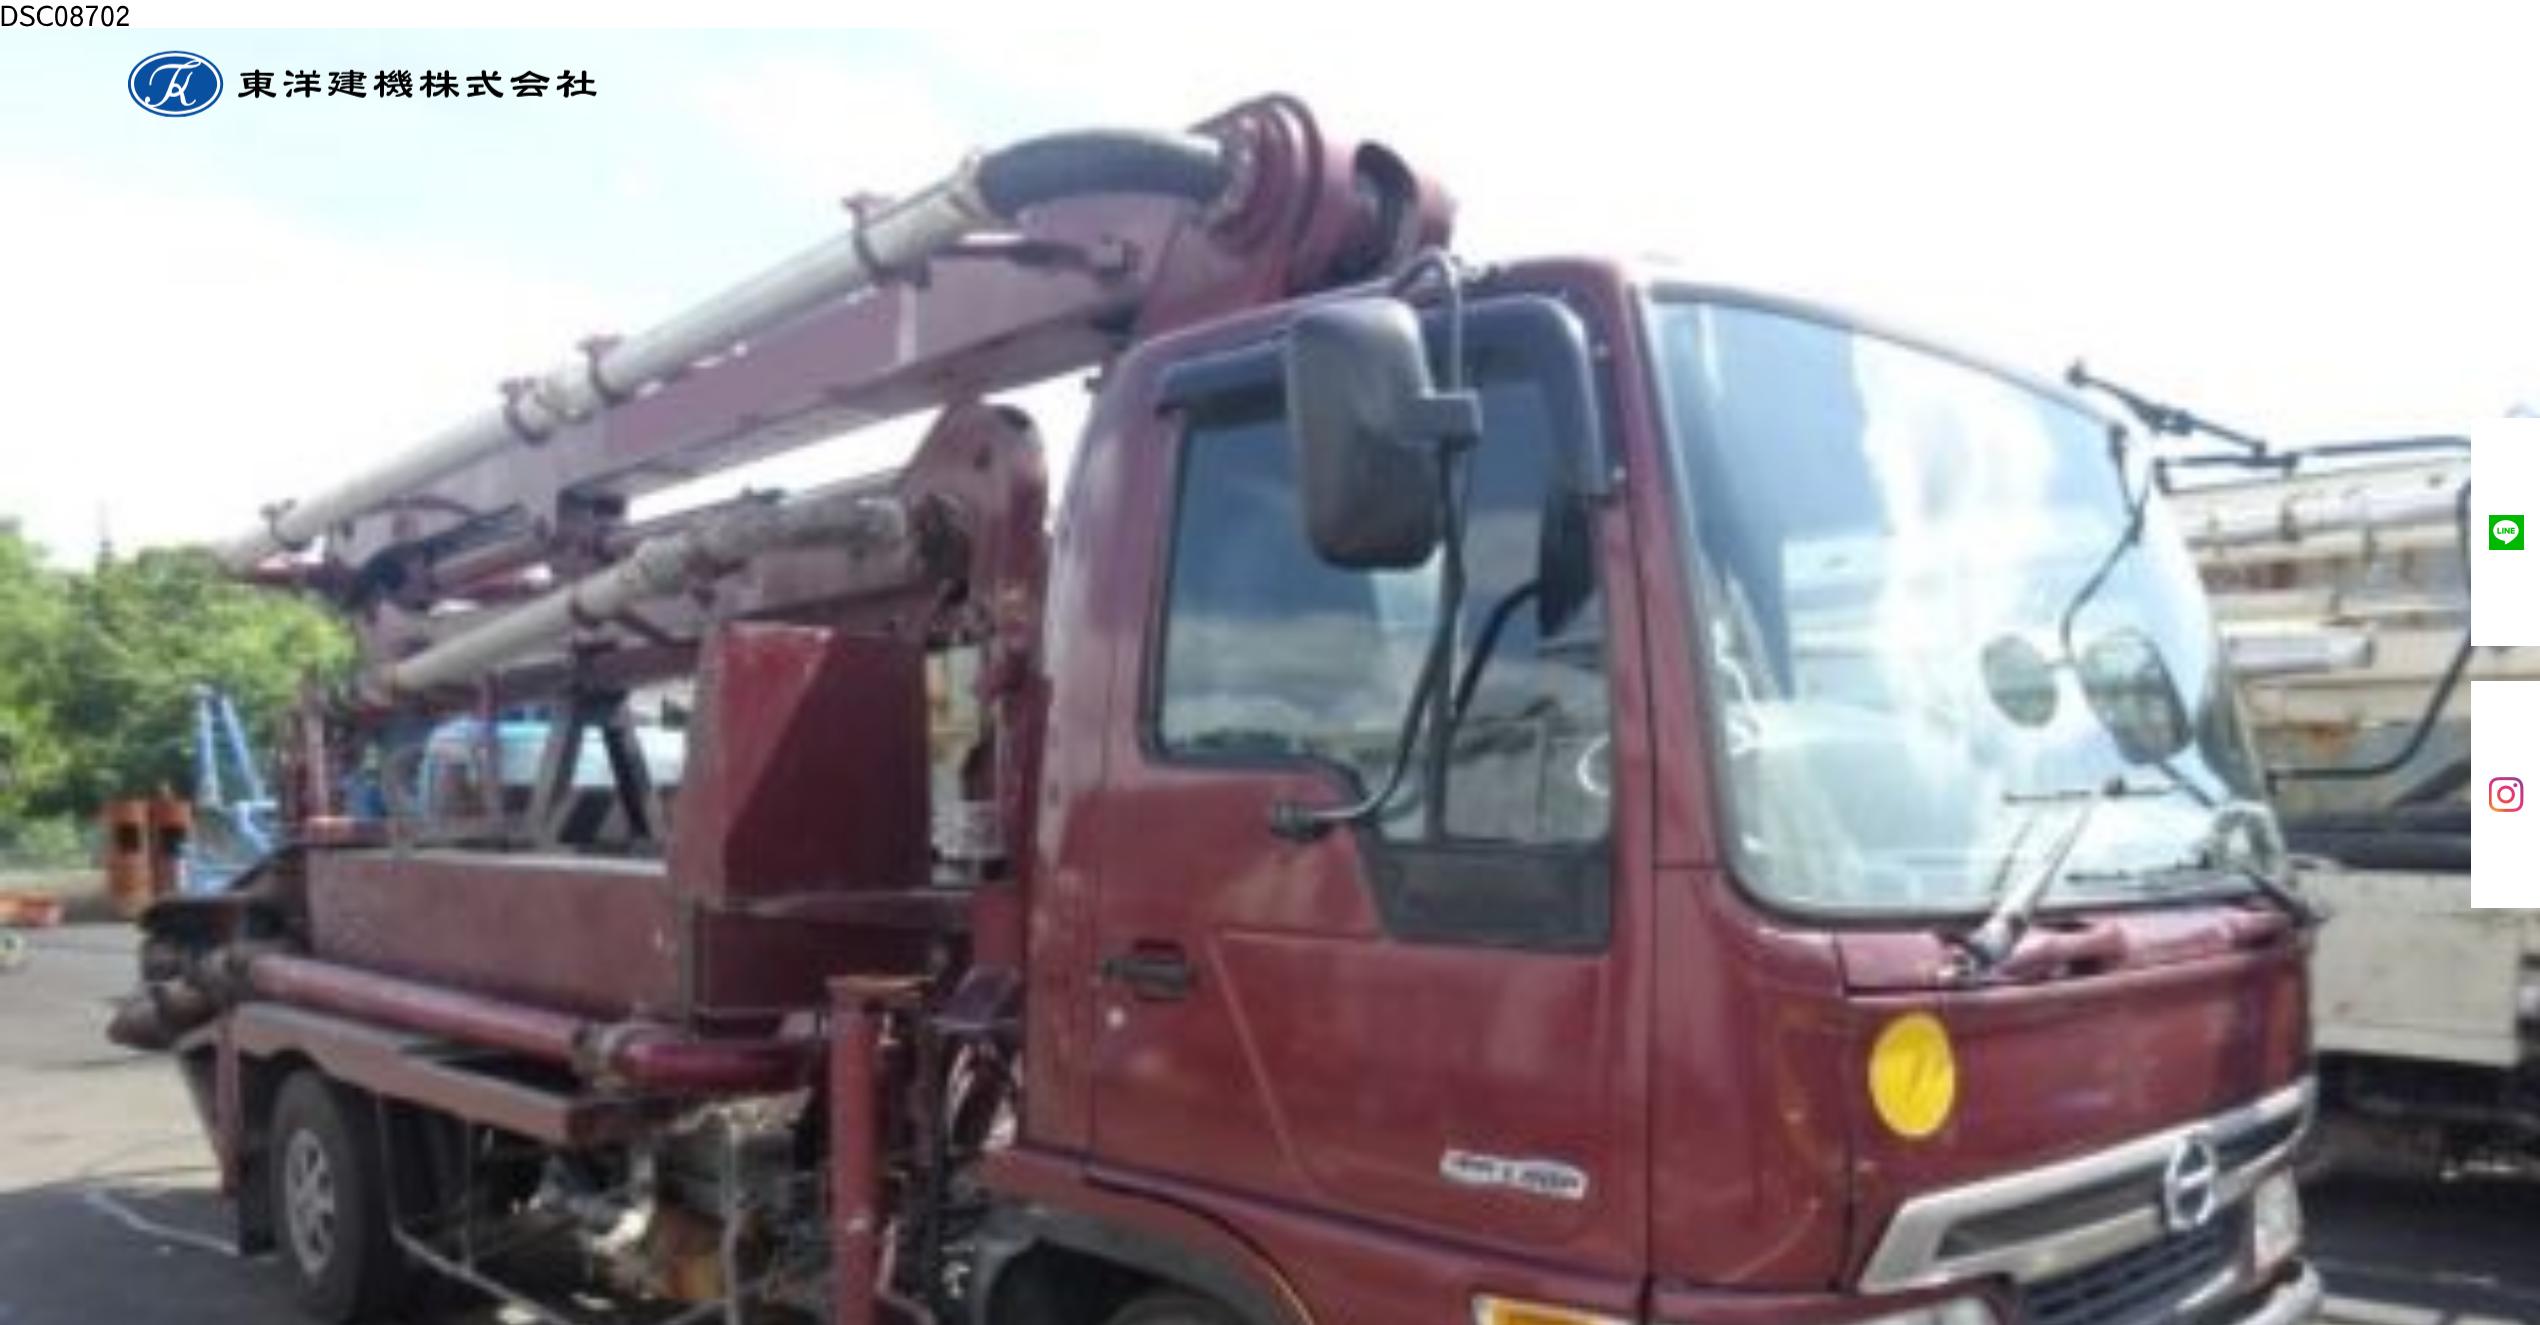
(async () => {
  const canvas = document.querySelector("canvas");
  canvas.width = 2540;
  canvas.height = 1325;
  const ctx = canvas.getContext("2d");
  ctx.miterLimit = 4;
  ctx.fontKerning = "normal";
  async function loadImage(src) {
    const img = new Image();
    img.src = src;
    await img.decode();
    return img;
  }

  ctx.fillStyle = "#ffffff";
  ctx.fillRect(0, 0, 2540, 1325);
  ctx.drawImage(await loadImage("img/1.png"), 0, 28, 2540, 1297);
  ctx.drawImage(await loadImage("img/2.png"), 128, 50, 469, 68);
  ctx.fillRect(2471, 418, 69, 228);
  ctx.drawImage(await loadImage("img/3.png"), 2489, 515, 35, 35);
  ctx.fillRect(2471, 681, 69, 227);
  ctx.drawImage(await loadImage("img/4.png"), 2489, 777, 35, 35);
  ctx.font = "28px Sawarabi Gothic";
  ctx.fillStyle = "#000000";
  ctx.fillText("DSC08702", 0, 26);
})();
